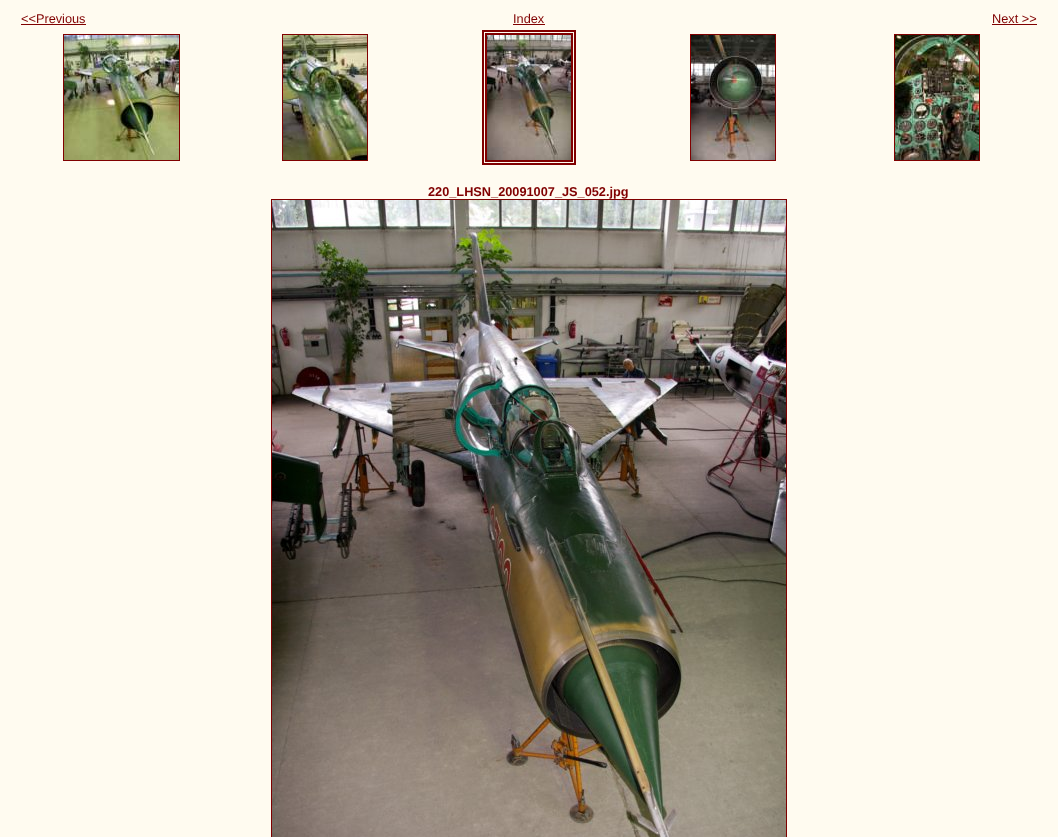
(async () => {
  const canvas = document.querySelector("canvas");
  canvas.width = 1058;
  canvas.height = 837;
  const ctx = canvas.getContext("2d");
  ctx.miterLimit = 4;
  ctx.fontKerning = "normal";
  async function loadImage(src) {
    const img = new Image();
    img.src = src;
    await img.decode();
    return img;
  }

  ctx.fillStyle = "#fffbf0";
  ctx.fillRect(0, 0, 1058, 837);
  for (const [x, y, w, h, color] of [
    [21, 24, 65, 1, "#800000"],
    [513, 24, 32, 1, "#800000"],
    [992, 24, 45, 1, "#800000"],
  ]) {
    ctx.fillStyle = color;
    ctx.fillRect(x, y, w, h);
  }
  ctx.strokeStyle = "#800000";
  ctx.strokeRect(63.5, 34.5, 116, 126);
  ctx.drawImage(await loadImage("img/1.png"), 64, 35, 115, 125);
  ctx.strokeRect(282.5, 34.5, 85, 126);
  ctx.drawImage(await loadImage("img/2.png"), 283, 35, 84, 125);
  ctx.lineWidth = 2;
  ctx.strokeRect(483, 31, 92, 133);
  ctx.strokeRect(486, 34, 86, 127);
  ctx.drawImage(await loadImage("img/3.png"), 487, 35, 84, 125);
  ctx.lineWidth = 1;
  ctx.strokeRect(690.5, 34.5, 85, 126);
  ctx.drawImage(await loadImage("img/4.png"), 691, 35, 84, 125);
  ctx.strokeRect(894.5, 34.5, 85, 126);
  ctx.drawImage(await loadImage("img/5.png"), 895, 35, 84, 125);
  ctx.strokeRect(271.5, 199.5, 515, 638);
  ctx.drawImage(await loadImage("img/6.png"), 272, 200, 514, 637);
  ctx.font = "12.75px Liberation Sans";
  for (const [text, x, y] of [
    ["<<Previous", 21, 23],
    ["Index", 513, 23],
    ["Next >>", 992, 23],
  ]) {
    ctx.fillText(text, x, y);
  }
  ctx.font = "bold 12.75px Liberation Sans";
  ctx.fillText("220_LHSN_20091007_JS_052.jpg", 428, 196);
})();
